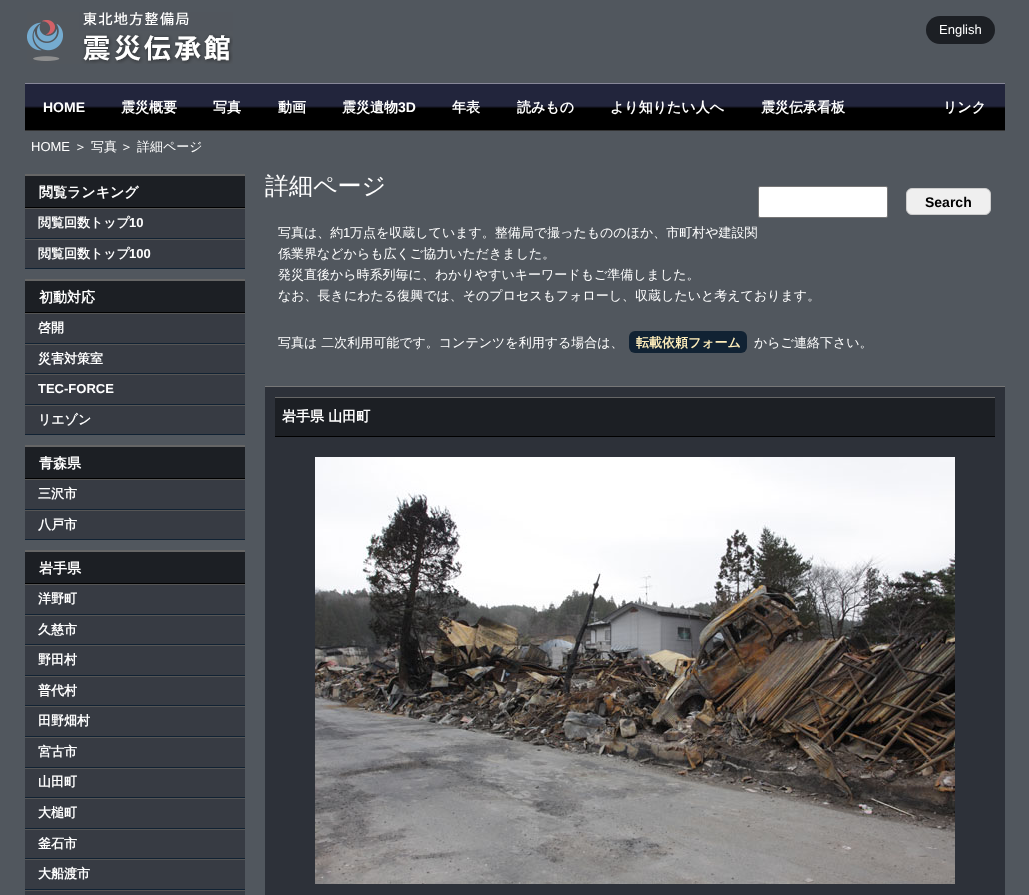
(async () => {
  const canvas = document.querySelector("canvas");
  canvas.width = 1029;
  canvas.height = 895;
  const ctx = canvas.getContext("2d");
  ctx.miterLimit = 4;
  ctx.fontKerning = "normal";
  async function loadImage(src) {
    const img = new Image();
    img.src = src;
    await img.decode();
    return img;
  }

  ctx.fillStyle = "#51575e";
  ctx.fillRect(0, 0, 1029, 895);
  ctx.drawImage(await loadImage("img/1.png"), 27, 12, 206, 52);
  ctx.fillStyle = "#1c1f24";
  ctx.beginPath();
  ctx.roundRect(926, 16, 69, 28, 14);
  ctx.fill();
  ctx.drawImage(await loadImage("img/2.png"), 863, 84, 62, 46);
  ctx.fillStyle = "#888899";
  ctx.fillRect(25, 83, 980, 1);
  ctx.fillStyle = "#333333";
  ctx.fillRect(25, 130, 980, 1);
  ctx.drawImage(await loadImage("img/3.png"), 25, 84, 78, 46);
  ctx.drawImage(await loadImage("img/4.png"), 103, 84, 92, 46);
  ctx.drawImage(await loadImage("img/5.png"), 195, 84, 65, 46);
  ctx.drawImage(await loadImage("img/6.png"), 260, 84, 64, 46);
  ctx.drawImage(await loadImage("img/7.png"), 324, 84, 110, 46);
  ctx.drawImage(await loadImage("img/5.png"), 434, 84, 65, 46);
  ctx.drawImage(await loadImage("img/8.png"), 499, 84, 93, 46);
  ctx.drawImage(await loadImage("img/9.png"), 592, 84, 150, 46);
  ctx.drawImage(await loadImage("img/10.png"), 742, 84, 121, 46);
  ctx.drawImage(await loadImage("img/11.png"), 925, 84, 80, 46);
  for (const [x, y, w, h, color] of [
    [25, 176, 220, 31, "#1c1f24"],
    [25, 174, 220, 2, "#666666"],
    [25, 207, 220, 1, "#000000"],
    [25, 209, 220, 59, "#373b43"],
    [25, 208, 220, 1, "#555555"],
    [25, 238, 220, 1, "#112233"],
    [25, 239, 220, 1, "#555555"],
    [25, 268, 220, 1, "#112233"],
    [25, 281, 220, 31, "#1c1f24"],
    [25, 279, 220, 2, "#666666"],
    [25, 312, 220, 1, "#000000"],
    [25, 314, 220, 120, "#373b43"],
    [25, 313, 220, 1, "#555555"],
    [25, 343, 220, 1, "#112233"],
    [25, 344, 220, 1, "#555555"],
    [25, 373, 220, 1, "#112233"],
    [25, 374, 220, 1, "#555555"],
    [25, 404, 220, 1, "#112233"],
    [25, 405, 220, 1, "#555555"],
    [25, 434, 220, 1, "#112233"],
    [25, 447, 220, 31, "#1c1f24"],
    [25, 445, 220, 2, "#666666"],
    [25, 478, 220, 1, "#000000"],
    [25, 480, 220, 59, "#373b43"],
    [25, 479, 220, 1, "#555555"],
    [25, 509, 220, 1, "#112233"],
    [25, 510, 220, 1, "#555555"],
    [25, 539, 220, 1, "#112233"],
    [25, 552, 220, 31, "#1c1f24"],
    [25, 550, 220, 2, "#666666"],
    [25, 583, 220, 1, "#000000"],
    [25, 585, 220, 310, "#373b43"],
    [25, 584, 220, 1, "#555555"],
    [25, 614, 220, 1, "#112233"],
    [25, 615, 220, 1, "#555555"],
    [25, 644, 220, 1, "#112233"],
    [25, 645, 220, 1, "#555555"],
    [25, 675, 220, 1, "#112233"],
    [25, 676, 220, 1, "#555555"],
    [25, 705, 220, 1, "#112233"],
    [25, 706, 220, 1, "#555555"],
    [25, 736, 220, 1, "#112233"],
    [25, 737, 220, 1, "#555555"],
    [25, 767, 220, 1, "#112233"],
    [25, 768, 220, 1, "#555555"],
    [25, 797, 220, 1, "#112233"],
    [25, 798, 220, 1, "#555555"],
    [25, 828, 220, 1, "#112233"],
    [25, 829, 220, 1, "#555555"],
    [25, 858, 220, 1, "#112233"],
    [25, 859, 220, 1, "#555555"],
    [25, 889, 220, 1, "#112233"],
    [25, 890, 220, 1, "#555555"],
  ]) {
    ctx.fillStyle = color;
    ctx.fillRect(x, y, w, h);
  }
  ctx.fillStyle = "#ffffff";
  ctx.beginPath();
  ctx.roundRect(758.5, 186.5, 129, 31, 1.5);
  ctx.fill();
  ctx.strokeStyle = "#767676";
  ctx.stroke();
  ctx.fillStyle = "#efefef";
  ctx.beginPath();
  ctx.roundRect(906.5, 188.5, 84, 26, 5.5);
  ctx.fill();
  ctx.strokeStyle = "#cccccc";
  ctx.stroke();
  ctx.fillStyle = "#112233";
  ctx.beginPath();
  ctx.roundRect(629, 331, 118, 22, 6);
  ctx.fill();
  for (const [x, y, w, h, color] of [
    [265, 387, 740, 508, "#2d3139"],
    [265, 386, 740, 1, "#777777"],
    [275, 398, 720, 38, "#1c1f24"],
    [275, 397, 720, 1, "#666666"],
    [275, 436, 720, 1, "#000000"],
  ]) {
    ctx.fillStyle = color;
    ctx.fillRect(x, y, w, h);
  }
  ctx.drawImage(await loadImage("img/12.png"), 315, 457, 640, 427);
  ctx.font = "13px Liberation Sans";
  ctx.fillStyle = "#ffffff";
  ctx.fillText("English", 939, 34);
  ctx.font = "bold 14px Liberation Sans";
  ctx.fillText("HOME", 43, 112);
  ctx.font = "bold 14px WenQuanYi Zen Hei";
  for (const [text, x, y] of [
    ["震災概要", 121, 112],
    ["写真", 213, 112],
    ["動画", 278, 112],
    ["震災遺物", 342, 112],
  ]) {
    ctx.fillText(text, x, y);
  }
  ctx.font = "bold 14px Liberation Sans";
  ctx.fillText("3D", 398, 112);
  ctx.font = "bold 14px WenQuanYi Zen Hei";
  for (const [text, x, y] of [
    ["年表", 452, 112],
    ["読みもの", 517, 112],
    ["より知りたい人へ", 610, 112],
    ["震災伝承看板", 761, 112],
    ["リンク", 943, 112],
  ]) {
    ctx.fillText(text, x, y);
  }
  ctx.font = "13px Liberation Sans";
  ctx.fillText("HOME", 31, 151);
  ctx.font = "500 13px WenQuanYi Zen Hei";
  ctx.fillText("＞ 写真", 74, 151);
  ctx.fillText("＞ 詳細ページ", 120, 151);
  ctx.font = "bold 14px WenQuanYi Zen Hei";
  ctx.fillText("閲覧ランキング", 39, 197);
  ctx.font = "bold 13px WenQuanYi Zen Hei";
  ctx.fillText("閲覧回数トップ", 38, 227);
  ctx.font = "bold 13px Liberation Sans";
  ctx.fillText("10", 129, 227);
  ctx.font = "bold 13px WenQuanYi Zen Hei";
  ctx.fillText("閲覧回数トップ", 38, 258);
  ctx.font = "bold 13px Liberation Sans";
  ctx.fillText("100", 129, 258);
  ctx.font = "bold 14px WenQuanYi Zen Hei";
  ctx.fillText("初動対応", 39, 302);
  ctx.font = "bold 13px WenQuanYi Zen Hei";
  ctx.fillText("啓開", 38, 332);
  ctx.fillText("災害対策室", 38, 363);
  ctx.font = "bold 13px Liberation Sans";
  ctx.fillText("TEC-FORCE", 38, 393);
  ctx.font = "bold 13px WenQuanYi Zen Hei";
  ctx.fillText("リエゾン", 38, 424);
  ctx.font = "bold 14px WenQuanYi Zen Hei";
  ctx.fillText("青森県", 39, 468);
  ctx.font = "bold 13px WenQuanYi Zen Hei";
  ctx.fillText("三沢市", 38, 498);
  ctx.fillText("八戸市", 38, 529);
  ctx.font = "bold 14px WenQuanYi Zen Hei";
  ctx.fillText("岩手県", 39, 573);
  ctx.font = "bold 13px WenQuanYi Zen Hei";
  for (const [text, x, y] of [
    ["洋野町", 38, 603],
    ["久慈市", 38, 634],
    ["野田村", 38, 664],
    ["普代村", 38, 695],
    ["田野畑村", 38, 725],
    ["宮古市", 38, 756],
    ["山田町", 38, 786],
    ["大槌町", 38, 817],
    ["釜石市", 38, 848],
    ["大船渡市", 38, 878],
  ]) {
    ctx.fillText(text, x, y);
  }
  ctx.font = "500 24px WenQuanYi Zen Hei";
  ctx.fillText("詳細ページ", 265, 194);
  ctx.font = "bold 14px Liberation Sans";
  ctx.fillStyle = "#000000";
  ctx.fillText("Search", 925, 207);
  ctx.font = "500 13px WenQuanYi Zen Hei";
  ctx.fillStyle = "#ffffff";
  ctx.fillText("写真は、約", 278, 237);
  ctx.font = "13px Liberation Sans";
  ctx.fillText("1", 343, 237);
  ctx.font = "500 13px WenQuanYi Zen Hei";
  for (const [text, x, y] of [
    ["万点を収蔵しています。整備局で撮ったもののほか、市町村や建設関", 350, 237],
    ["係業界などからも広くご協力いただきました。", 278, 258],
    ["発災直後から時系列毎に、わかりやすいキーワードもご準備しました。", 278, 279],
    ["なお、長きにわたる復興では、そのプロセスもフォローし、収蔵したいと考えております。", 278, 300],
    ["写真は 二次利用可能です。コンテンツを利用する場合は、", 278, 347],
  ]) {
    ctx.fillText(text, x, y);
  }
  ctx.font = "bold 13px WenQuanYi Zen Hei";
  ctx.fillStyle = "#ffeebb";
  ctx.fillText("転載依頼フォーム", 636, 347);
  ctx.font = "500 13px WenQuanYi Zen Hei";
  ctx.fillStyle = "#ffffff";
  ctx.fillText("からご連絡下さい。", 754, 347);
  ctx.font = "bold 14px WenQuanYi Zen Hei";
  ctx.fillText("岩手県 山田町", 282, 421);
})();
